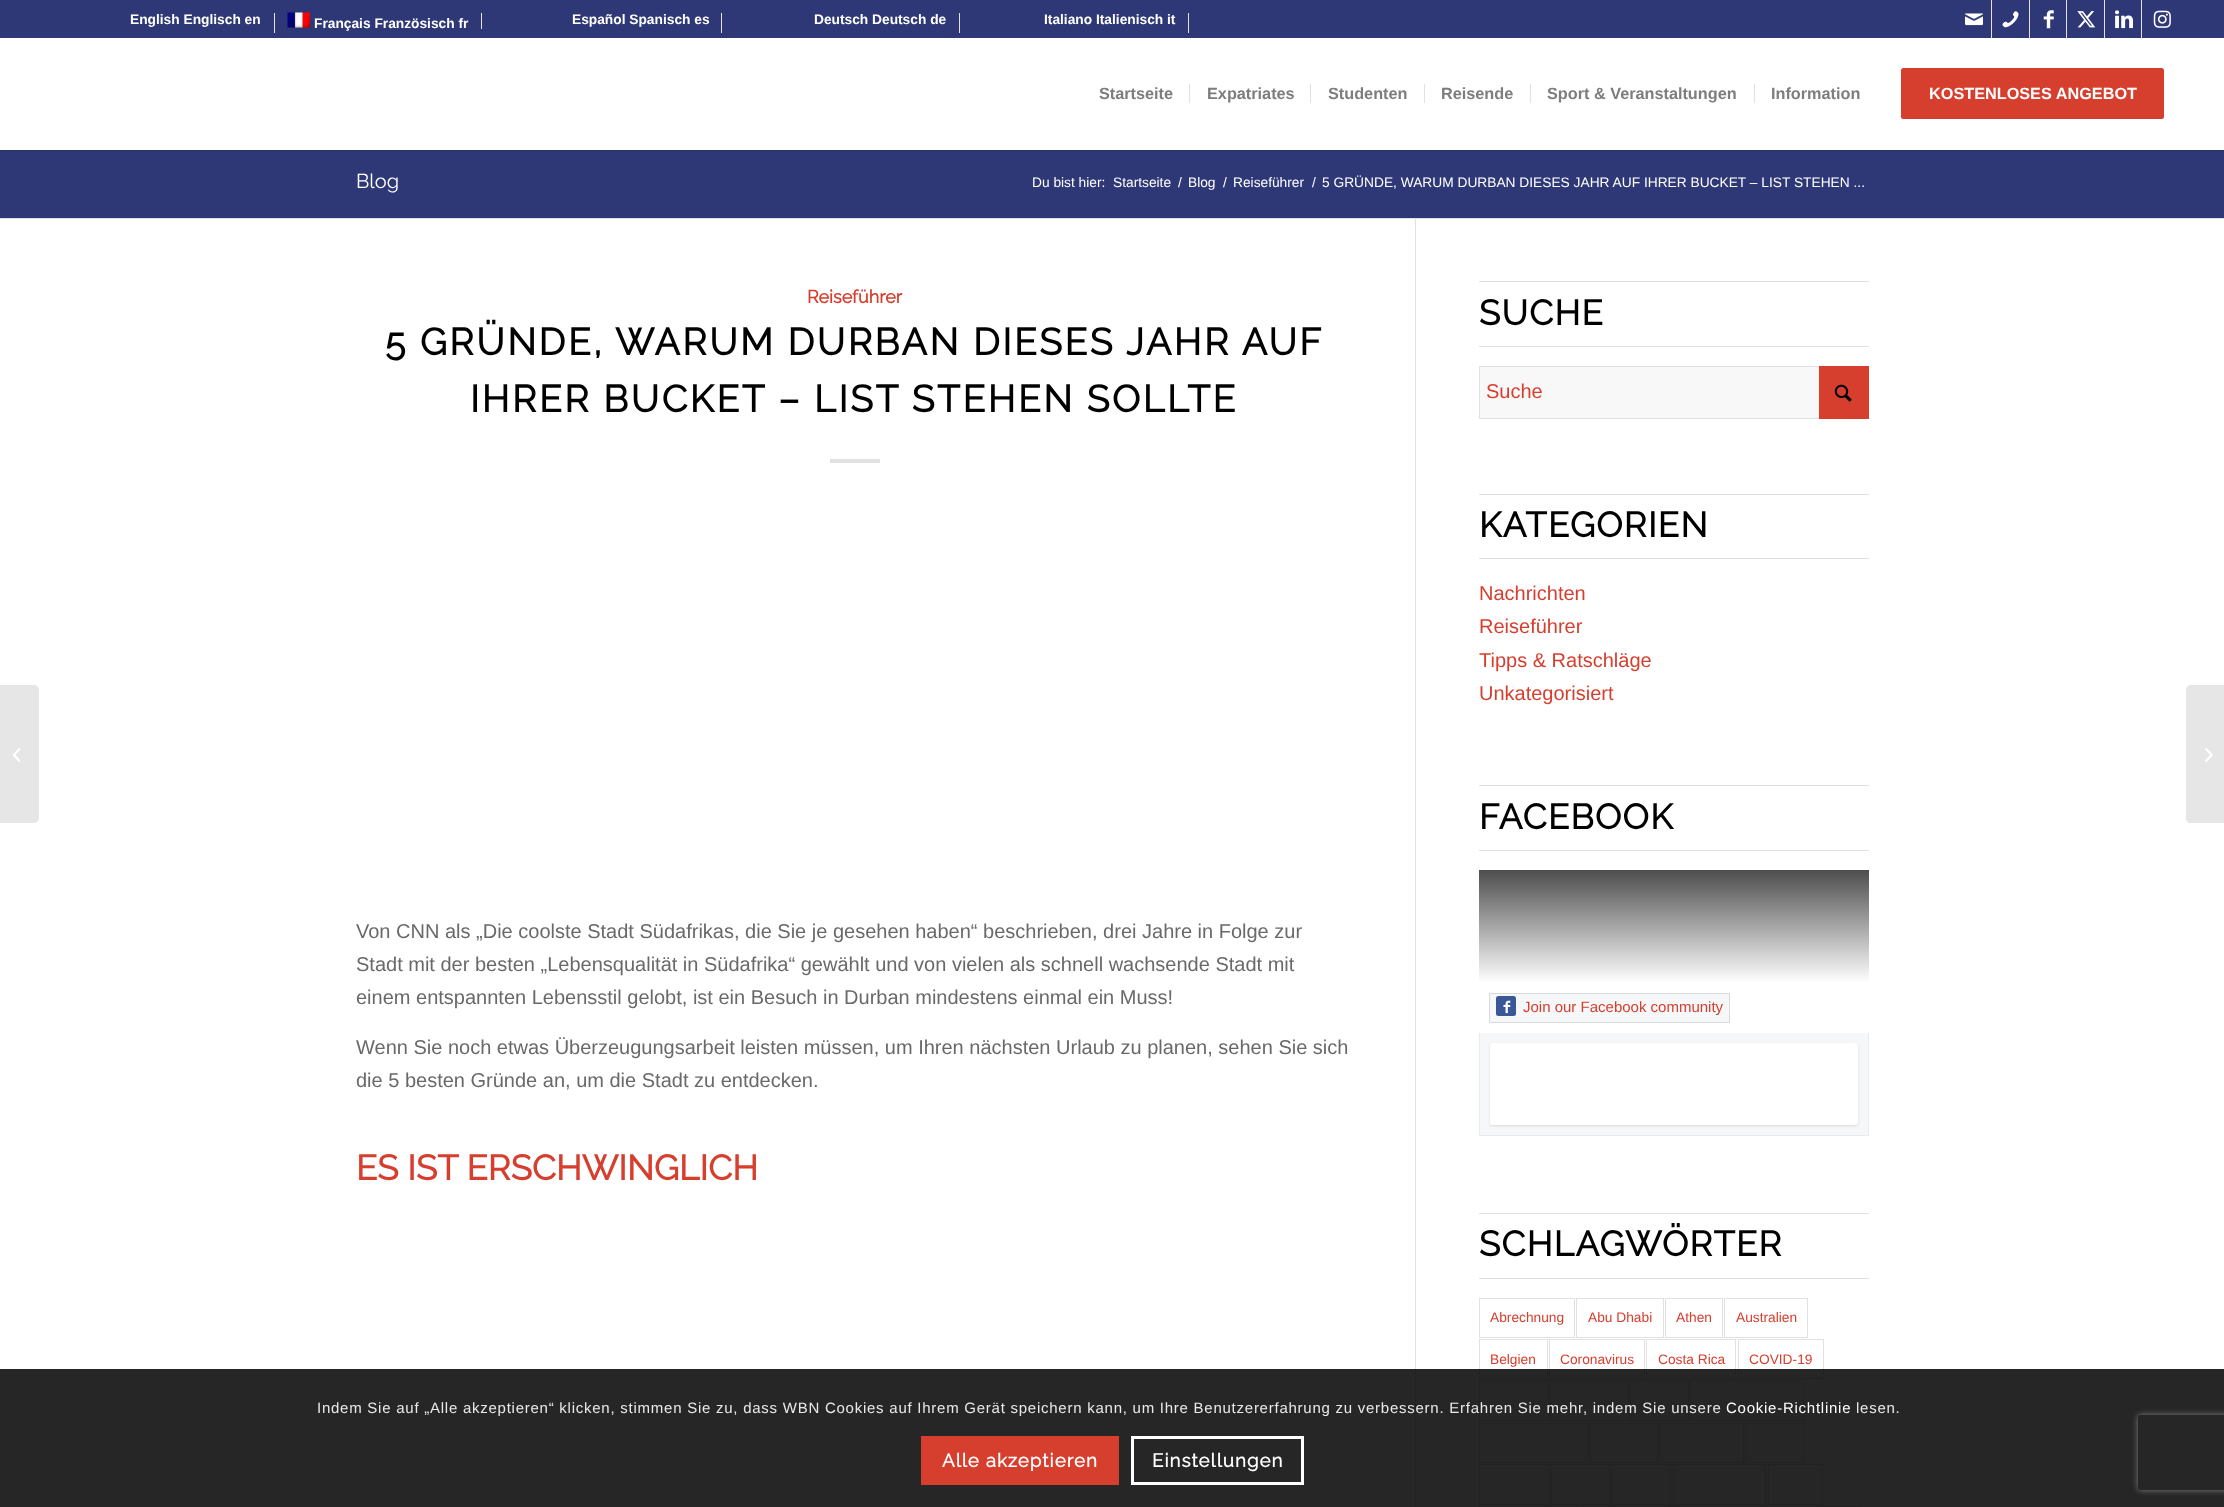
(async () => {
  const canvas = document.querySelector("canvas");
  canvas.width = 2224;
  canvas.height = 1507;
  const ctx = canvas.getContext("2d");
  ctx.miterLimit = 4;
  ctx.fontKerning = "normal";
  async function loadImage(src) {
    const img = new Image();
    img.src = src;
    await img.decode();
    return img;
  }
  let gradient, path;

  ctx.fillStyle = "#ffffff";
  ctx.fillRect(0, 0, 2224, 1507);
  ctx.fillStyle = "#2f3877";
  ctx.fillRect(0, 150, 2224, 68);
  ctx.fillStyle = "rgba(0, 0, 0, 0.1)";
  ctx.filter = "blur(1px)";
  ctx.beginPath();
  ctx.rect(-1, -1, 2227, 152);
  ctx.fill();
  ctx.filter = "none";
  for (const [x, y, w, h, color] of [
    [0, 0, 2224, 38, "#2f3877"],
    [274, 13, 1, 20, "#e1e1e1"],
    [481, 13, 1, 16, "#e1e1e1"],
  ]) {
    ctx.fillStyle = color;
    ctx.fillRect(x, y, w, h);
  }
  ctx.drawImage(await loadImage("img/1.png"), 287, 12, 23, 16);
  for (const [x, y, w, h, color] of [
    [721, 13, 1, 20, "#e1e1e1"],
    [959, 13, 1, 20, "#e1e1e1"],
    [1188, 13, 1, 20, "#e1e1e1"],
    [1991, 0, 1, 38, "#e1e1e1"],
  ]) {
    ctx.fillStyle = color;
    ctx.fillRect(x, y, w, h);
  }
  ctx.drawImage(await loadImage("img/2.png"), 1965, 13, 18, 13);
  ctx.fillRect(2029, 0, 1, 38);
  ctx.drawImage(await loadImage("img/3.png"), 2002, 11, 17, 17);
  ctx.fillRect(2066, 0, 1, 38);
  ctx.drawImage(await loadImage("img/4.png"), 2043, 10, 11, 19);
  ctx.fillRect(2104, 0, 1, 38);
  ctx.drawImage(await loadImage("img/5.png"), 2077, 11, 19, 17);
  ctx.fillRect(2141, 0, 1, 38);
  ctx.drawImage(await loadImage("img/6.png"), 2115, 10, 18, 19);
  ctx.drawImage(await loadImage("img/7.png"), 2153, 10, 18, 18);
  for (const [x, y, w, h, color] of [
    [0, 38, 2224, 112, "#ffffff"],
    [1189, 84, 1, 19, "#e1e1e1"],
    [1310, 84, 1, 19, "#e1e1e1"],
    [1424, 84, 1, 19, "#e1e1e1"],
    [1530, 84, 1, 19, "#e1e1e1"],
    [1754, 84, 1, 19, "#e1e1e1"],
  ]) {
    ctx.fillStyle = color;
    ctx.fillRect(x, y, w, h);
  }
  ctx.fillStyle = "#d63e2d";
  ctx.beginPath();
  ctx.roundRect(1902.5, 69.5, 260, 48, 1);
  ctx.fill();
  ctx.strokeStyle = "#d63e2d";
  ctx.lineWidth = 3;
  ctx.stroke();
  ctx.fillStyle = "#e6e6e6";
  ctx.beginPath();
  ctx.roundRect(0, 685, 39, 138, [0, 5, 5, 0]);
  ctx.fill();
  ctx.drawImage(await loadImage("img/8.png"), 13, 748, 7, 14);
  for (const [x, y, w, h, color] of [
    [0, 218, 2224, 1, "#e1e1e1"],
    [1415, 219, 1, 1288, "#e1e1e1"],
    [830, 459, 50, 4, "#e1e1e1"],
    [1479, 281, 390, 1, "#e1e1e1"],
    [1479, 346, 390, 1, "#e1e1e1"],
    [1480, 367, 339, 51, "#f8f8f8"],
  ]) {
    ctx.fillStyle = color;
    ctx.fillRect(x, y, w, h);
  }
  ctx.strokeStyle = "#e1e1e1";
  ctx.lineWidth = 1;
  ctx.strokeRect(1479.5, 366.5, 389, 52);
  ctx.fillStyle = "#d63e2d";
  ctx.fillRect(1819, 366, 50, 53);
  ctx.drawImage(await loadImage("img/9.png"), 1834, 384, 18, 18);
  for (const [x, y, w, h, color] of [
    [1479, 494, 390, 1, "#e1e1e1"],
    [1479, 558, 390, 1, "#e1e1e1"],
    [1479, 785, 390, 1, "#e1e1e1"],
    [1479, 850, 390, 1, "#e1e1e1"],
  ]) {
    ctx.fillStyle = color;
    ctx.fillRect(x, y, w, h);
  }
  gradient = ctx.createLinearGradient(1674, 870, 1674, 983);
  gradient.addColorStop(0, "#4d4d4d");
  gradient.addColorStop(1, "#ffffff");
  ctx.fillStyle = gradient;
  ctx.fillRect(1479, 870, 390, 111);
  ctx.fillStyle = "#f6f7f9";
  ctx.beginPath();
  ctx.rect(1489.5, 993.5, 240, 29);
  ctx.fill();
  ctx.strokeStyle = "#d8d9db";
  ctx.stroke();
  ctx.fillStyle = "#3a5797";
  ctx.beginPath();
  ctx.roundRect(1496, 996, 20, 20, 2.5);
  ctx.fill();
  ctx.drawImage(await loadImage("img/10.png"), 1503, 1000, 8, 14);
  for (const [x, y, w, h, color] of [
    [1480, 1033, 388, 102, "#f6f7f9"],
    [1868, 1033, 1, 103, "#e9ebee"],
    [1479, 1135, 390, 1, "#e9ebee"],
    [1479, 1033, 1, 103, "#e9ebee"],
  ]) {
    ctx.fillStyle = color;
    ctx.fillRect(x, y, w, h);
  }
  ctx.fillStyle = "rgba(0, 0, 0, 0.12)";
  ctx.filter = "blur(1px)";
  ctx.beginPath();
  ctx.roundRect(1490, 1044, 368, 82, 2.5);
  ctx.fill();
  ctx.filter = "none";
  ctx.fillStyle = "#ffffff";
  ctx.beginPath();
  ctx.roundRect(1490, 1043, 368, 82, 2.5);
  ctx.fill();
  ctx.fillStyle = "#e1e1e1";
  ctx.fillRect(1479, 1213, 390, 1);
  ctx.fillRect(1479, 1278, 390, 1);
  ctx.strokeStyle = "#e1e1e1";
  ctx.strokeRect(1479.5, 1298.5, 95, 39);
  ctx.strokeRect(1576.5, 1298.5, 87, 39);
  ctx.strokeRect(1665.5, 1298.5, 57, 39);
  ctx.strokeRect(1724.5, 1298.5, 83, 39);
  ctx.strokeRect(1479.5, 1339.5, 68, 39);
  ctx.strokeRect(1549.5, 1339.5, 95, 39);
  ctx.strokeRect(1646.5, 1339.5, 89, 39);
  ctx.strokeRect(1738.5, 1339.5, 85, 39);
  ctx.strokeRect(1479.5, 1380.5, 69, 40);
  ctx.strokeRect(1550.5, 1380.5, 78, 40);
  ctx.strokeRect(1630.5, 1380.5, 58, 40);
  ctx.strokeRect(1690.5, 1380.5, 113, 40);
  ctx.strokeRect(1479.5, 1423.5, 109, 39);
  ctx.strokeRect(1590.5, 1423.5, 67, 39);
  ctx.strokeRect(1659.5, 1423.5, 84, 39);
  ctx.strokeRect(1745.5, 1423.5, 58, 39);
  ctx.strokeRect(1479.5, 1464.5, 70, 40);
  ctx.strokeRect(1551.5, 1464.5, 58, 40);
  ctx.strokeRect(1611.5, 1464.5, 59, 40);
  ctx.strokeRect(1673.5, 1464.5, 92, 40);
  ctx.strokeRect(1768.5, 1464.5, 54, 40);
  ctx.strokeRect(1479.5, 1506.5, 100, 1);
  ctx.strokeRect(1581.5, 1506.5, 84, 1);
  ctx.strokeRect(1668.5, 1506.5, 94, 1);
  ctx.strokeRect(1764.5, 1506.5, 96, 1);
  ctx.fillStyle = "#e6e6e6";
  path = new Path2D("M2191 685H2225V823H2191C2188 823 2186 821 2186 818V690C2186 687 2188 685 2191 685Z");
  ctx.fill(path);
  ctx.drawImage(await loadImage("img/11.png"), 2205, 748, 8, 14);
  ctx.fillStyle = "rgba(0, 0, 0, 0.85)";
  ctx.fillRect(0, 1369, 2224, 138);
  ctx.fillStyle = "#d63e2d";
  ctx.fillRect(921, 1436, 198, 49);
  ctx.strokeStyle = "#ffffff";
  ctx.lineWidth = 3;
  ctx.strokeRect(1132.5, 1437.5, 170, 46);
  ctx.save();
  path = new Path2D("M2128 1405H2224V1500H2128ZM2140.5 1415H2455.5C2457 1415 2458 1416 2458 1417.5V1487.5C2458 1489 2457 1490 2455.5 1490H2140.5C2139 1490 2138 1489 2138 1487.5V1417.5C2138 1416 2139 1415 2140.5 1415Z");
  ctx.clip(path, "evenodd");
  ctx.fillStyle = "#808080";
  ctx.filter = "blur(3px)";
  ctx.beginPath();
  ctx.roundRect(2138, 1415, 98, 75, 2.5);
  ctx.fill();
  ctx.filter = "none";
  ctx.restore();
  ctx.font = "bold 13.75px Liberation Sans";
  ctx.fillStyle = "#ffffff";
  for (const [text, x, y] of [
    ["English Englisch en", 130, 24],
    ["Français Französisch fr", 314, 28],
    ["Español Spanisch es", 572, 24],
    ["Deutsch Deutsch de", 814, 24],
    ["Italiano Italienisch it", 1044, 24],
  ]) {
    ctx.fillText(text, x, y);
  }
  ctx.font = "bold 16.25px Liberation Sans";
  ctx.fillStyle = "#7d7d7d";
  for (const [text, x, y] of [
    ["Startseite", 1099, 99],
    ["Expatriates", 1207, 99],
    ["Studenten", 1328, 99],
    ["Reisende", 1441, 99],
    ["Sport & Veranstaltungen", 1547, 99],
    ["Information", 1771, 99],
  ]) {
    ctx.fillText(text, x, y);
  }
  ctx.fillStyle = "#ffffff";
  ctx.fillText("KOSTENLOSES ANGEBOT", 1929, 99);
  ctx.font = "100 20px Raleway";
  ctx.fillText("Blog", 356, 188);
  ctx.font = "13.75px Liberation Sans";
  for (const [text, x, y] of [
    ["Du bist hier:", 1032, 187],
    ["Startseite", 1113, 187],
    ["/", 1178, 187],
    ["Blog", 1188, 187],
    ["/", 1223, 187],
    ["Reiseführer", 1233, 187],
    ["/", 1312, 187],
    ["5 GRÜNDE, WARUM DURBAN DIESES JAHR AUF IHRER BUCKET – LIST STEHEN ...", 1322, 187],
  ]) {
    ctx.fillText(text, x, y);
  }
  ctx.font = "bold 18px Raleway";
  ctx.fillStyle = "#d63e2d";
  ctx.fillText("Reiseführer", 807, 303);
  ctx.letterSpacing = "2.5px";
  ctx.font = "bold 37.5px Raleway";
  ctx.fillStyle = "#000000";
  ctx.fillText("5 GRÜNDE, WARUM DURBAN DIESES JAHR AUF", 385, 355);
  ctx.fillText("IHRER BUCKET – LIST STEHEN SOLLTE", 470, 412);
  ctx.letterSpacing = "0px";
  ctx.font = "20px Liberation Sans";
  ctx.fillStyle = "#696969";
  for (const [text, x, y] of [
    ["Von CNN als „Die coolste Stadt Südafrikas, die Sie je gesehen haben“ beschrieben, drei Jahre in Folge zur", 356, 938],
    ["Stadt mit der besten „Lebensqualität in Südafrika“ gewählt und von vielen als schnell wachsende Stadt mit", 356, 971],
    ["einem entspannten Lebensstil gelobt, ist ein Besuch in Durban mindestens einmal ein Muss!", 356, 1004],
    ["Wenn Sie noch etwas Überzeugungsarbeit leisten müssen, um Ihren nächsten Urlaub zu planen, sehen Sie sich", 356, 1054],
    ["die 5 besten Gründe an, um die Stadt zu entdecken.", 356, 1087],
  ]) {
    ctx.fillText(text, x, y);
  }
  ctx.font = "bold 35px Raleway";
  ctx.fillStyle = "#d63e2d";
  ctx.fillText("ES IST ERSCHWINGLICH", 356, 1180);
  ctx.letterSpacing = "1.25px";
  ctx.fillStyle = "#000000";
  ctx.fillText("SUCHE", 1479, 325);
  ctx.letterSpacing = "0px";
  ctx.font = "20px Liberation Sans";
  ctx.fillStyle = "#d63e2d";
  ctx.fillText("Suche", 1486, 398);
  ctx.letterSpacing = "1.25px";
  ctx.font = "bold 35px Raleway";
  ctx.fillStyle = "#000000";
  ctx.fillText("KATEGORIEN", 1479, 537);
  ctx.letterSpacing = "0px";
  ctx.font = "20px Liberation Sans";
  ctx.fillStyle = "#d63e2d";
  for (const [text, x, y] of [
    ["Nachrichten", 1479, 600],
    ["Reiseführer", 1479, 633],
    ["Tipps & Ratschläge", 1479, 667],
    ["Unkategorisiert", 1479, 700],
  ]) {
    ctx.fillText(text, x, y);
  }
  ctx.letterSpacing = "1.25px";
  ctx.font = "bold 35px Raleway";
  ctx.fillStyle = "#000000";
  ctx.fillText("FACEBOOK", 1479, 829);
  ctx.letterSpacing = "0px";
  ctx.font = "15px Liberation Sans";
  ctx.fillStyle = "#d63e2d";
  ctx.fillText("Join our Facebook community", 1523, 1012);
  ctx.letterSpacing = "1.25px";
  ctx.font = "bold 35px Raleway";
  ctx.fillStyle = "#000000";
  ctx.fillText("SCHLAGWÖRTER", 1479, 1256);
  ctx.letterSpacing = "0px";
  ctx.font = "13.75px Liberation Sans";
  ctx.fillStyle = "#d63e2d";
  for (const [text, x, y] of [
    ["Abrechnung", 1490, 1322],
    ["Abu Dhabi", 1588, 1322],
    ["Athen", 1676, 1322],
    ["Australien", 1736, 1322],
    ["Belgien", 1490, 1364],
    ["Coronavirus", 1560, 1364],
    ["Costa Rica", 1658, 1364],
    ["COVID-19", 1749, 1364],
  ]) {
    ctx.fillText(text, x, y);
  }
  ctx.letterSpacing = "0.75px";
  ctx.font = "15px Liberation Sans";
  ctx.fillStyle = "#e9e9e9";
  ctx.fillText("Indem Sie auf „Alle akzeptieren“ klicken, stimmen Sie zu, dass WBN Cookies auf Ihrem Gerät speichern kann, um Ihre Benutzererfahrung zu verbessern. Erfahren Sie mehr, indem Sie unsere", 317, 1413);
  ctx.fillStyle = "#ffffff";
  ctx.fillText("Cookie-Richtlinie", 1726, 1413);
  ctx.fillStyle = "#e9e9e9";
  ctx.fillText("lesen.", 1856, 1413);
  ctx.letterSpacing = "1px";
  ctx.font = "bold 18.75px Raleway";
  ctx.fillStyle = "#ffffff";
  ctx.fillText("Alle akzeptieren", 942, 1467);
  ctx.fillText("Einstellungen", 1152, 1467);
})();
